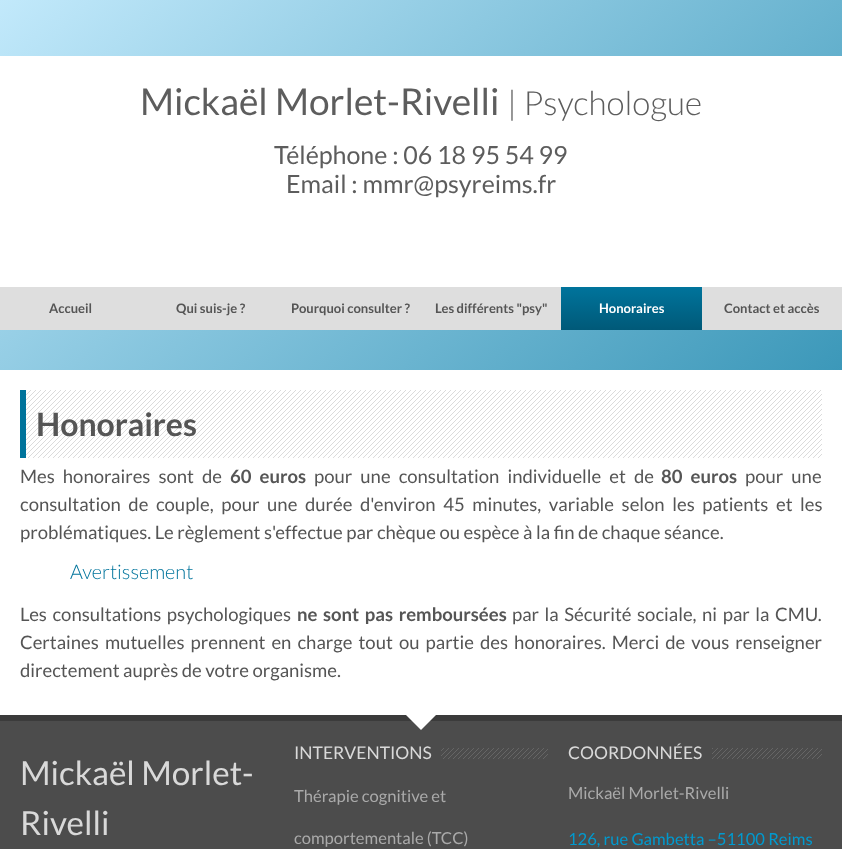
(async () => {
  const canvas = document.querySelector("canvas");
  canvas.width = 842;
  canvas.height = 849;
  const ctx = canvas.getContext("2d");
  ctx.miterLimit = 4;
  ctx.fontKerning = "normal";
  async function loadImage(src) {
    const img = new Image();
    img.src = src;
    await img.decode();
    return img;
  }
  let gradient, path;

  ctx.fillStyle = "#ffffff";
  ctx.fillRect(0, 0, 842, 849);
  gradient = ctx.createLinearGradient(38, -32, 804, 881);
  gradient.addColorStop(0, "#c2e9fb");
  gradient.addColorStop(1, "#00749c");
  ctx.fillStyle = gradient;
  ctx.fillRect(0, 0, 842, 370);
  ctx.fillStyle = "#ffffff";
  ctx.fillRect(0, 56, 842, 231);
  ctx.fillStyle = "#dedede";
  ctx.fillRect(0, 287, 842, 43);
  gradient = ctx.createLinearGradient(632, 287, 632, 330);
  gradient.addColorStop(0, "#00749c");
  gradient.addColorStop(1, "#005978");
  ctx.fillStyle = gradient;
  ctx.fillRect(561, 287, 141, 43);
  ctx.drawImage(await loadImage("img/1.png"), 26, 390, 796, 68);
  for (const [x, y, w, h, color] of [
    [20, 390, 6, 68, "#00749c"],
    [0, 721, 842, 128, "#4c4c4c"],
    [0, 715, 842, 6, "#3b3b3b"],
  ]) {
    ctx.fillStyle = color;
    ctx.fillRect(x, y, w, h);
  }
  ctx.fillStyle = "#ffffff";
  path = new Path2D("M406 715H436L421 730Z");
  ctx.fill(path);
  ctx.drawImage(await loadImage("img/2.png"), 441, 748, 107, 11);
  ctx.drawImage(await loadImage("img/3.png"), 712, 748, 110, 11);
  ctx.font = "37px Lato";
  ctx.fillStyle = "#5d5d5d";
  ctx.fillText("Mickaël Morlet-Rivelli", 140, 115);
  ctx.font = "300 33.25px Lato";
  ctx.fillText("| Psychologue", 507, 115);
  ctx.font = "25px Lato";
  ctx.fillText("Téléphone : 06 18 95 54 99", 274, 164);
  ctx.fillText("Email : mmr@psyreims.fr", 286, 193);
  ctx.font = "bold 13px Lato";
  ctx.fillStyle = "#555555";
  for (const [text, x, y] of [
    ["Accueil", 49, 313],
    ["Qui suis-je ?", 176, 313],
    ["Pourquoi consulter ?", 291, 313],
    ["Les différents \"psy\"", 435, 313],
  ]) {
    ctx.fillText(text, x, y);
  }
  ctx.fillStyle = "#ffffff";
  ctx.fillText("Honoraires", 599, 313);
  ctx.fillStyle = "#555555";
  ctx.fillText("Contact et accès", 724, 313);
  ctx.font = "bold 32px Lato";
  ctx.fillText("Honoraires", 36, 436);
  ctx.wordSpacing = "4.5px";
  ctx.font = "18.5px Lato";
  ctx.fillText("Mes honoraires sont de", 20, 483);
  ctx.font = "bold 18.5px Lato";
  ctx.fillText("60 euros", 230, 483);
  ctx.font = "18.5px Lato";
  ctx.fillText("pour une consultation individuelle et de", 314, 483);
  ctx.font = "bold 18.5px Lato";
  ctx.fillText("80 euros", 661, 483);
  ctx.font = "18.5px Lato";
  ctx.fillText("pour une", 745, 483);
  ctx.wordSpacing = "4px";
  ctx.fillText("consultation de couple, pour une durée d'environ 45 minutes, variable selon les patients et les", 20, 511);
  ctx.wordSpacing = "0px";
  ctx.fillText("problématiques. Le règlement s'effectue par chèque ou espèce à la fin de chaque séance.", 20, 539);
  ctx.font = "300 20px Lato";
  ctx.fillStyle = "#00749c";
  ctx.fillText("Avertissement", 70, 579);
  ctx.wordSpacing = "2px";
  ctx.font = "18.5px Lato";
  ctx.fillStyle = "#555555";
  ctx.fillText("Les consultations psychologiques", 20, 621);
  ctx.font = "bold 18.5px Lato";
  ctx.fillText("ne sont pas remboursées", 297, 621);
  ctx.font = "18.5px Lato";
  ctx.fillText("par la Sécurité sociale, ni par la CMU.", 512, 621);
  ctx.wordSpacing = "2.5px";
  ctx.fillText("Certaines mutuelles prennent en charge tout ou partie des honoraires. Merci de vous renseigner", 20, 649);
  ctx.wordSpacing = "0px";
  ctx.fillText("directement auprès de votre organisme.", 20, 677);
  ctx.font = "33.25px Lato";
  ctx.fillStyle = "#d9d9d9";
  ctx.fillText("Mickaël Morlet-", 20, 785);
  ctx.fillText("Rivelli", 20, 835);
  ctx.font = "17.5px Lato";
  ctx.fillText("INTERVENTIONS", 294, 759);
  ctx.font = "16.6px Lato";
  ctx.fillStyle = "#aaaaaa";
  ctx.fillText("Thérapie cognitive et", 294, 802);
  ctx.fillText("comportementale (TCC)", 294, 844);
  ctx.font = "17.5px Lato";
  ctx.fillStyle = "#d9d9d9";
  ctx.fillText("COORDONNÉES", 568, 759);
  ctx.font = "16.6px Lato";
  ctx.fillStyle = "#aaaaaa";
  ctx.fillText("Mickaël Morlet-Rivelli", 568, 799);
  ctx.fillStyle = "#009acf";
  ctx.fillText("126, rue Gambetta –51100 Reims", 568, 845);
})();
